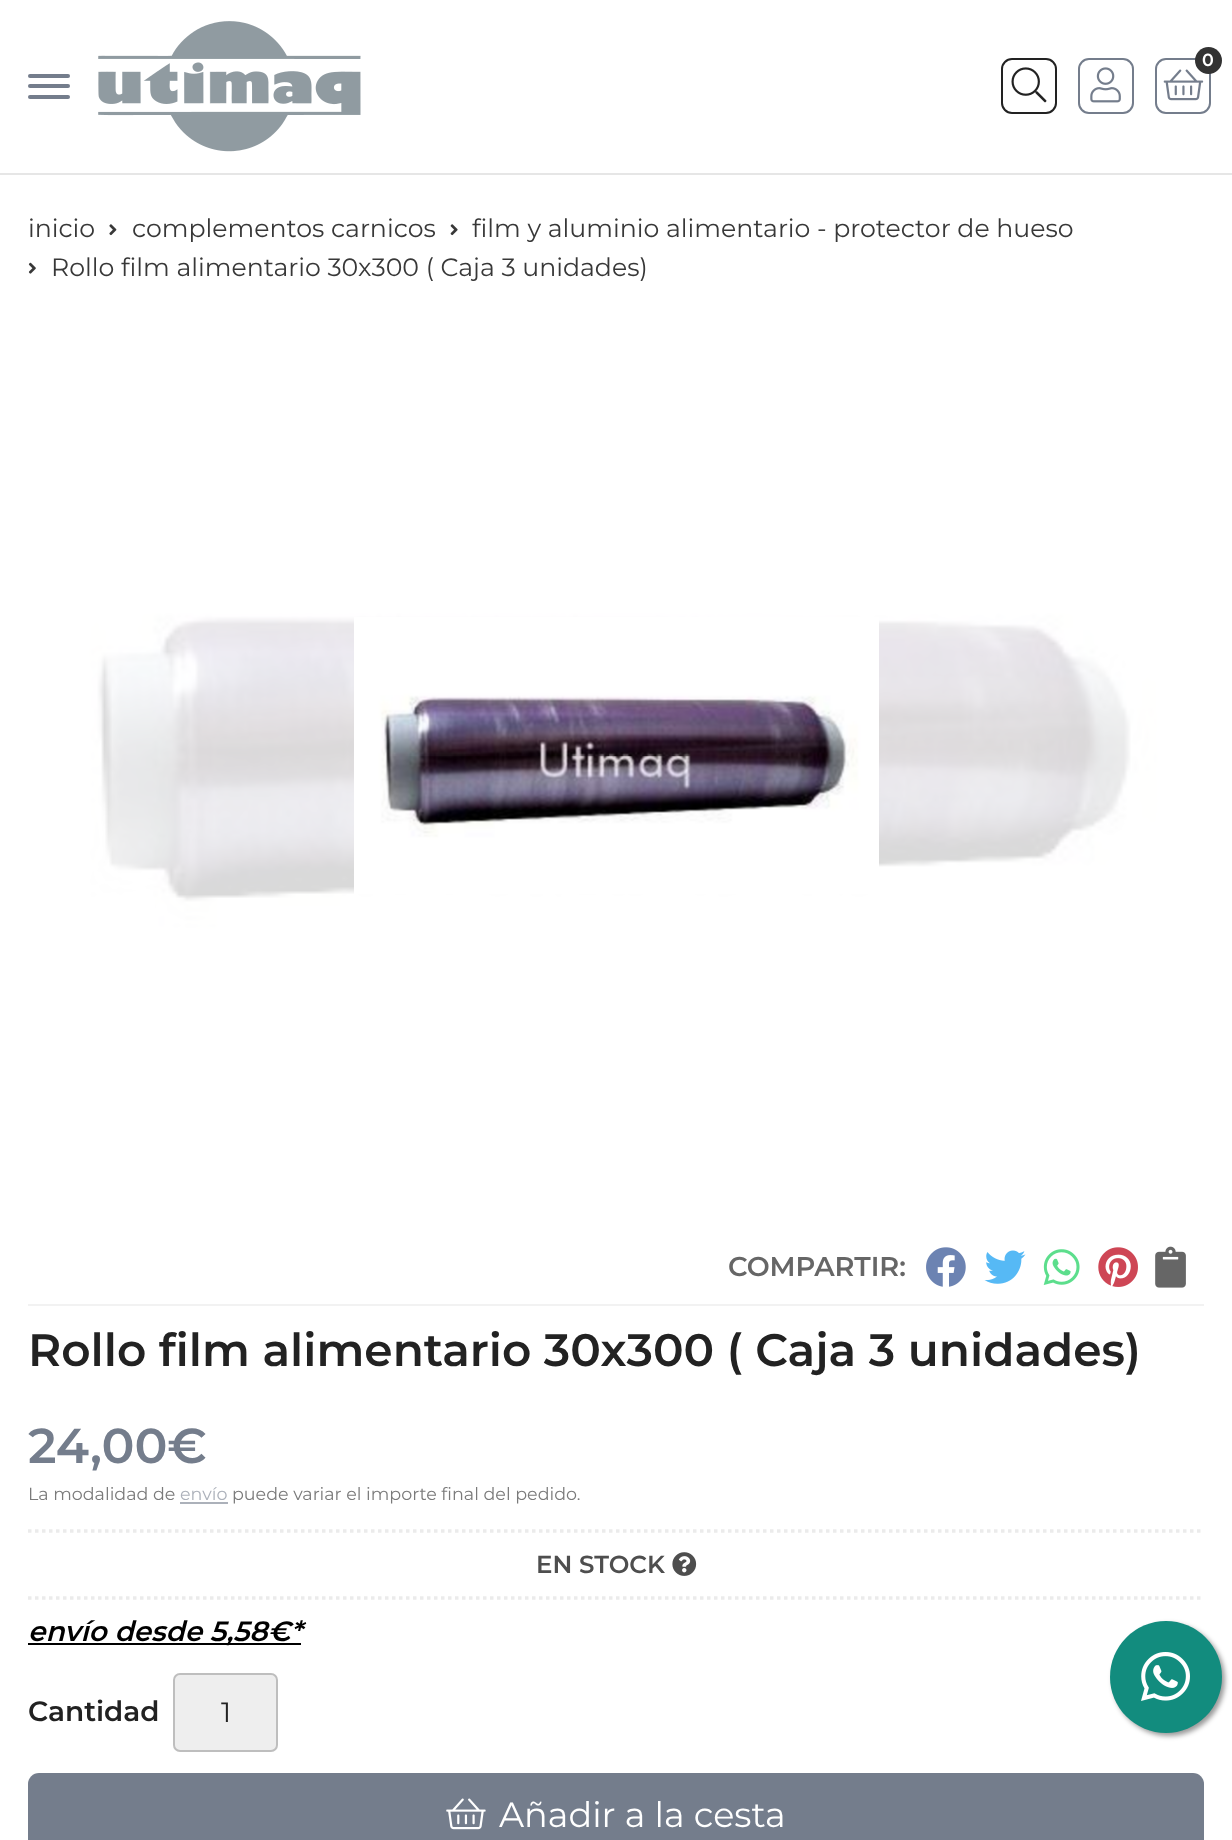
(async () => {
  const canvas = document.querySelector("canvas");
  canvas.width = 1232;
  canvas.height = 1840;
  const ctx = canvas.getContext("2d");
  ctx.miterLimit = 4;
  ctx.fontKerning = "normal";
  async function loadImage(src) {
    const img = new Image();
    img.src = src;
    await img.decode();
    return img;
  }
  let path;

  ctx.fillStyle = "#ffffff";
  ctx.fillRect(0, 0, 1232, 1840);
  ctx.fillStyle = "#e6e6e6";
  ctx.fillRect(0, 173, 1232, 2);
  ctx.fillStyle = "#747d8c";
  ctx.beginPath();
  ctx.roundRect(28, 74, 42, 4, 2);
  ctx.fill();
  ctx.beginPath();
  ctx.roundRect(28, 84, 42, 4, 2);
  ctx.fill();
  ctx.beginPath();
  ctx.roundRect(28, 95, 42, 4, 2);
  ctx.fill();
  ctx.drawImage(await loadImage("img/1.png"), 98, 21, 263, 131);
  ctx.beginPath();
  ctx.roundRect(1002, 59, 54, 54, 10);
  ctx.strokeStyle = "#222222";
  ctx.lineWidth = 2;
  ctx.stroke();
  ctx.drawImage(await loadImage("img/2.png"), 1011, 67, 36, 36);
  ctx.beginPath();
  ctx.roundRect(1079, 59, 54, 54, 10);
  ctx.strokeStyle = "#747d8c";
  ctx.stroke();
  ctx.drawImage(await loadImage("img/3.png"), 1090, 67, 31, 36);
  ctx.beginPath();
  ctx.roundRect(1156, 59, 54, 54, 10);
  ctx.stroke();
  ctx.drawImage(await loadImage("img/4.png"), 1163, 69, 41, 32);
  ctx.fillStyle = "#333333";
  ctx.beginPath();
  ctx.arc(1208.5, 60.5, 13.5, 0, Math.PI * 2);
  ctx.fill();
  ctx.drawImage(await loadImage("img/5.png"), 109, 224, 8, 12);
  ctx.drawImage(await loadImage("img/6.png"), 450, 224, 8, 12);
  ctx.drawImage(await loadImage("img/7.png"), 28, 262, 8, 12);
  ctx.drawImage(await loadImage("img/8.png"), 28, 322, 1176, 882);
  ctx.drawImage(await loadImage("img/9.png"), 354, 617, 525, 277);
  ctx.fillStyle = "#f2f2f2";
  ctx.fillRect(28, 1304, 1176, 2);
  ctx.drawImage(await loadImage("img/10.png"), 926, 1247, 40, 40);
  ctx.drawImage(await loadImage("img/11.png"), 984, 1250, 42, 34);
  ctx.drawImage(await loadImage("img/12.png"), 1043, 1249, 37, 36);
  ctx.drawImage(await loadImage("img/13.png"), 1098, 1247, 40, 40);
  ctx.drawImage(await loadImage("img/14.png"), 1155, 1246, 31, 42);
  ctx.fillStyle = "#acb1ba";
  ctx.fillRect(180, 1502, 48, 2);
  path = new Path2D("M28 1531H1204");
  ctx.strokeStyle = "#ebebeb";
  ctx.lineWidth = 3.5;
  ctx.setLineDash([3.5, 3.5]);
  ctx.stroke(path);
  path = new Path2D("M28 1598H1204");
  ctx.stroke(path);
  ctx.drawImage(await loadImage("img/15.png"), 672, 1552, 25, 24);
  ctx.fillStyle = "#000000";
  ctx.fillRect(28, 1643, 240, 2);
  ctx.fillRect(268, 1643, 33, 2);
  ctx.fillStyle = "#eeeeee";
  ctx.beginPath();
  ctx.roundRect(173, 1673, 105, 79, 7);
  ctx.fill();
  ctx.beginPath();
  ctx.roundRect(174, 1674, 103, 77, 6);
  ctx.strokeStyle = "rgba(0, 0, 0, 0.2)";
  ctx.lineWidth = 2;
  ctx.setLineDash([]);
  ctx.stroke();
  ctx.fillStyle = "#747d8c";
  ctx.beginPath();
  ctx.roundRect(28, 1773, 1176, 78, 11);
  ctx.fill();
  ctx.drawImage(await loadImage("img/16.png"), 446, 1798, 40, 32);
  ctx.fillStyle = "rgba(0, 0, 0, 0.4)";
  ctx.filter = "blur(2.5px)";
  ctx.beginPath();
  ctx.roundRect(1113, 1624, 112, 112, 56);
  ctx.fill();
  ctx.filter = "none";
  ctx.fillStyle = "#128c7e";
  ctx.beginPath();
  ctx.arc(1166, 1677, 56, 0, Math.PI * 2);
  ctx.fill();
  ctx.drawImage(await loadImage("img/17.png"), 1141, 1652, 49, 49);
  ctx.font = "600 17.5px Montserrat";
  ctx.fillStyle = "#ffffff";
  ctx.fillText("0", 1202, 66);
  ctx.font = "25.2px Montserrat";
  ctx.fillStyle = "#383838";
  for (const [text, x, y] of [
    ["inicio", 28, 237],
    ["complementos carnicos", 132, 237],
    ["film y aluminio alimentario - protector de hueso", 472, 237],
    ["Rollo film alimentario 30x300 ( Caja 3 unidades)", 51, 276],
  ]) {
    ctx.fillText(text, x, y);
  }
  ctx.font = "600 27.25px Montserrat";
  ctx.fillStyle = "#666666";
  ctx.fillText("COMPARTIR:", 728, 1276);
  ctx.font = "600 45.5px Montserrat";
  ctx.fillStyle = "#222222";
  ctx.fillText("Rollo film alimentario 30x300 ( Caja 3 unidades)", 28, 1366);
  ctx.font = "600 49px Montserrat";
  ctx.fillStyle = "#747d8c";
  ctx.fillText("24,00€", 28, 1463);
  ctx.font = "17.5px Montserrat";
  ctx.fillStyle = "#7a7a7a";
  ctx.fillText("La modalidad de", 28, 1500);
  ctx.fillStyle = "#acb1ba";
  ctx.fillText("envío", 180, 1500);
  ctx.fillStyle = "#7a7a7a";
  ctx.fillText("puede variar el importe final del pedido.", 232, 1500);
  ctx.font = "600 24.5px Montserrat";
  ctx.fillStyle = "#4e4e4e";
  ctx.fillText("EN STOCK", 536, 1573);
  ctx.font = "italic 600 28px Montserrat";
  ctx.fillStyle = "#000000";
  ctx.fillText("envío desde 5,58€*", 28, 1641);
  ctx.font = "600 28px Montserrat";
  ctx.fillStyle = "#222222";
  ctx.fillText("Cantidad", 28, 1721);
  ctx.font = "28px Montserrat";
  ctx.fillText("1", 221, 1722);
  ctx.font = "35px Montserrat";
  ctx.fillStyle = "#ffffff";
  ctx.fillText("Añadir a la cesta", 499, 1827);
})();
